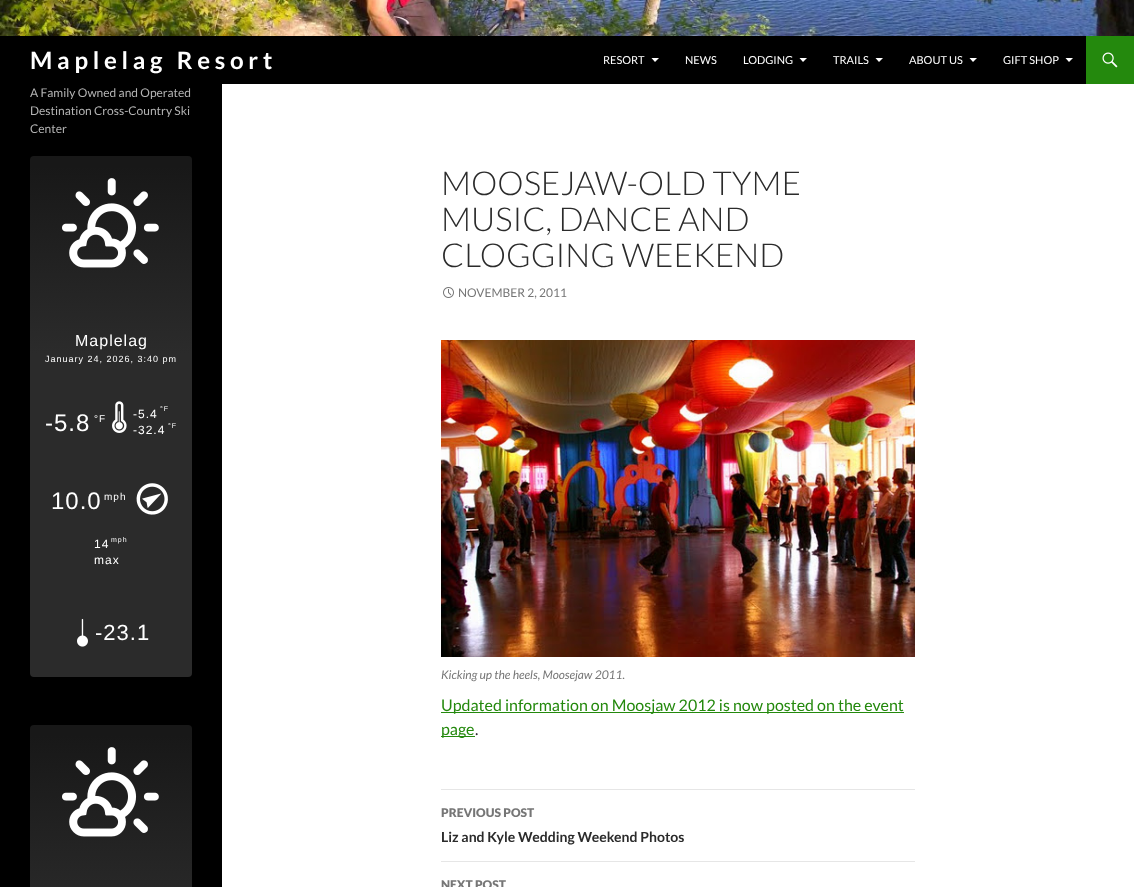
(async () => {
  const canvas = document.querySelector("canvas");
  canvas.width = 1134;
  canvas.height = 887;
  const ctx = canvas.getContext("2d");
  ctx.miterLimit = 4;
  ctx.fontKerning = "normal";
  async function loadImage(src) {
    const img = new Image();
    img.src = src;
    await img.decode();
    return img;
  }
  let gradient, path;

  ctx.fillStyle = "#ffffff";
  ctx.fillRect(0, 0, 1134, 887);
  ctx.drawImage(await loadImage("img/1.png"), 0, 0, 1134, 36);
  ctx.fillStyle = "#000000";
  ctx.fillRect(0, 36, 1086, 48);
  ctx.fillStyle = "#ffffff";
  path = new Path2D("M651.5 58H659L655 62Z");
  ctx.fill(path);
  path = new Path2D("M799.5 58H807L803 62Z");
  ctx.fill(path);
  path = new Path2D("M875.5 58H883L879 62Z");
  ctx.fill(path);
  path = new Path2D("M969.5 58H977L973 62Z");
  ctx.fill(path);
  path = new Path2D("M1065.5 58H1073L1069 62Z");
  ctx.fill(path);
  ctx.fillStyle = "#24890d";
  ctx.fillRect(1086, 36, 48, 48);
  ctx.drawImage(await loadImage("img/2.png"), 1102, 52, 16, 16);
  ctx.fillStyle = "#000000";
  ctx.fillRect(0, 84, 222, 803);
  gradient = ctx.createLinearGradient(111, 156, 111, 677);
  gradient.addColorStop(0.02, "#181818");
  gradient.addColorStop(0.38, "#2b2b2b");
  ctx.fillStyle = gradient;
  ctx.beginPath();
  ctx.roundRect(30, 156, 162, 521, 4);
  ctx.fill();
  ctx.drawImage(await loadImage("img/3.png"), 62, 178, 97, 90);
  ctx.drawImage(await loadImage("img/4.png"), 112, 401, 15, 32);
  ctx.drawImage(await loadImage("img/5.png"), 136, 483, 32, 32);
  ctx.drawImage(await loadImage("img/6.png"), 77, 618, 11, 29);
  gradient = ctx.createLinearGradient(111, 725, 111, 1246);
  gradient.addColorStop(0.02, "#181818");
  gradient.addColorStop(0.38, "#2b2b2b");
  ctx.fillStyle = gradient;
  ctx.beginPath();
  ctx.roundRect(30, 725, 162, 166, 4);
  ctx.fill();
  ctx.drawImage(await loadImage("img/3.png"), 62, 747, 97, 90);
  ctx.drawImage(await loadImage("img/7.png"), 443, 287, 11, 11);
  ctx.drawImage(await loadImage("img/8.png"), 441, 340, 474, 317);
  for (const [x, y, w, h, color] of [
    [441, 712, 463, 1, "#24890d"],
    [441, 736, 34, 1, "#24890d"],
    [441, 789, 474, 1, "#e6e6e6"],
    [441, 861, 474, 1, "#e6e6e6"],
  ]) {
    ctx.fillStyle = color;
    ctx.fillRect(x, y, w, h);
  }
  ctx.letterSpacing = "4.75px";
  ctx.font = "bold 24px Lato";
  ctx.fillStyle = "#ffffff";
  ctx.fillText("Maplelag Resort", 30, 69);
  ctx.letterSpacing = "0px";
  ctx.font = "11px Lato";
  for (const [text, x, y] of [
    ["RESORT", 603, 64],
    ["NEWS", 685, 64],
    ["LODGING", 743, 64],
    ["TRAILS", 833, 64],
    ["ABOUT US", 909, 64],
    ["GIFT SHOP", 1003, 64],
  ]) {
    ctx.fillText(text, x, y);
  }
  ctx.font = "12px Lato";
  ctx.fillStyle = "#b3b3b3";
  for (const [text, x, y] of [
    ["A Family Owned and Operated", 30, 97],
    ["Destination Cross-Country Ski", 30, 115],
    ["Center", 30, 133],
  ]) {
    ctx.fillText(text, x, y);
  }
  ctx.letterSpacing = "1px";
  ctx.font = "16px Liberation Sans";
  ctx.fillStyle = "#ffffff";
  ctx.fillText("Maplelag", 75, 346);
  ctx.font = "9px Liberation Sans";
  ctx.fillText("January 24, 2026, 3:40 pm", 45, 362);
  ctx.font = "24px Liberation Sans";
  ctx.fillText("-5.8", 45, 431);
  ctx.font = "10px Liberation Sans";
  ctx.fillText("°F", 94, 422);
  ctx.font = "7px Liberation Sans";
  ctx.fillText("°F", 160, 411);
  ctx.font = "12px Liberation Sans";
  ctx.fillText("-5.4", 133, 418);
  ctx.fillText("-32.4", 133, 434);
  ctx.font = "7px Liberation Sans";
  ctx.fillText("°F", 168, 428);
  ctx.font = "24px Liberation Sans";
  ctx.fillText("10.0", 51, 509);
  ctx.font = "10px Liberation Sans";
  ctx.fillText("mph", 104, 500);
  ctx.font = "12px Liberation Sans";
  ctx.fillText("14", 94, 548);
  ctx.font = "7px Liberation Sans";
  ctx.fillText("mph", 111, 542);
  ctx.font = "12px Liberation Sans";
  ctx.fillText("max", 94, 564);
  ctx.font = "22px Liberation Sans";
  ctx.fillText("-23.1", 95, 640);
  ctx.letterSpacing = "0px";
  ctx.font = "300 33px Lato";
  ctx.fillStyle = "#2b2b2b";
  for (const [text, x, y] of [
    ["MOOSEJAW-OLD TYME", 441, 195],
    ["MUSIC, DANCE AND", 441, 231],
    ["CLOGGING WEEKEND", 441, 267],
  ]) {
    ctx.fillText(text, x, y);
  }
  ctx.font = "12px Lato";
  ctx.fillStyle = "#767676";
  ctx.fillText("NOVEMBER 2, 2011", 458, 297);
  ctx.font = "italic 12px Lato";
  ctx.fillText("Kicking up the heels, Moosejaw 2011.", 441, 679);
  ctx.font = "16px Lato";
  ctx.fillStyle = "#24890d";
  ctx.fillText("Updated information on Moosjaw 2012 is now posted on the event", 441, 711);
  ctx.fillText("page", 441, 735);
  ctx.fillStyle = "#2b2b2b";
  ctx.fillText(".", 475, 735);
  ctx.font = "900 12px Lato";
  ctx.fillStyle = "#767676";
  ctx.fillText("PREVIOUS POST", 441, 817);
  ctx.font = "bold 14px Lato";
  ctx.fillStyle = "#2b2b2b";
  ctx.fillText("Liz and Kyle Wedding Weekend Photos", 441, 842);
  ctx.font = "900 12px Lato";
  ctx.fillStyle = "#767676";
  ctx.fillText("NEXT POST", 441, 889);
})();
